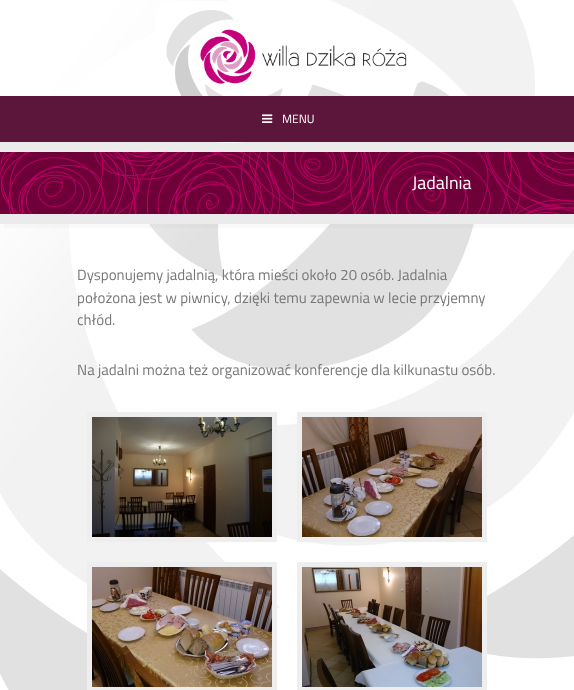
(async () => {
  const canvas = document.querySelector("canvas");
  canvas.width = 574;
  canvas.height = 690;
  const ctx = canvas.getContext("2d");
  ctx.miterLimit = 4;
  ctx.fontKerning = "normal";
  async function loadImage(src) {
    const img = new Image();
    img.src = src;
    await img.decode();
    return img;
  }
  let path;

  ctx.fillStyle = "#ffffff";
  ctx.fillRect(0, 0, 574, 690);
  ctx.drawImage(await loadImage("img/1.png"), 0, 0, 574, 690);
  ctx.fillStyle = "#ebebeb";
  ctx.fillRect(0, 142, 574, 10);
  ctx.drawImage(await loadImage("img/2.png"), 155, 1, 252, 142);
  ctx.fillStyle = "#5c163b";
  ctx.fillRect(0, 96, 574, 46);
  ctx.drawImage(await loadImage("img/3.png"), 262, 114, 11, 9);
  ctx.fillStyle = "rgba(150, 150, 150, 0.05)";
  path = new Path2D("M4 224V228H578V146H574V224Z");
  ctx.fill(path);
  ctx.drawImage(await loadImage("img/4.png"), 0, 152, 574, 62);
  ctx.fillStyle = "#ebebeb";
  ctx.fillRect(0, 214, 574, 10);
  ctx.strokeStyle = "#eeeeee";
  ctx.lineWidth = 5;
  ctx.strokeRect(89.5, 414.5, 185, 125);
  ctx.drawImage(await loadImage("img/5.png"), 92, 417, 180, 120);
  ctx.strokeRect(299.5, 414.5, 185, 125);
  ctx.drawImage(await loadImage("img/6.png"), 302, 417, 180, 120);
  ctx.strokeRect(89.5, 564.5, 185, 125);
  ctx.drawImage(await loadImage("img/7.png"), 92, 567, 180, 120);
  ctx.strokeRect(299.5, 564.5, 185, 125);
  ctx.drawImage(await loadImage("img/8.png"), 302, 567, 180, 120);
  ctx.font = "12px Titillium Web";
  ctx.fillStyle = "#ffffff";
  ctx.fillText("MENU", 282, 123);
  ctx.font = "18px Titillium Web";
  ctx.fillText("Jadalnia", 412, 189);
  ctx.font = "15px Titillium Web";
  ctx.fillStyle = "#777777";
  for (const [text, x, y] of [
    ["Dysponujemy jadalnią, która mieści około 20 osób. Jadalnia", 77, 280],
    ["położona jest w piwnicy, dzięki temu zapewnia w lecie przyjemny", 77, 303],
    ["chłód.", 77, 325],
    ["Na jadalni można też organizować konferencje dla kilkunastu osób.", 77, 375],
  ]) {
    ctx.fillText(text, x, y);
  }
})();
